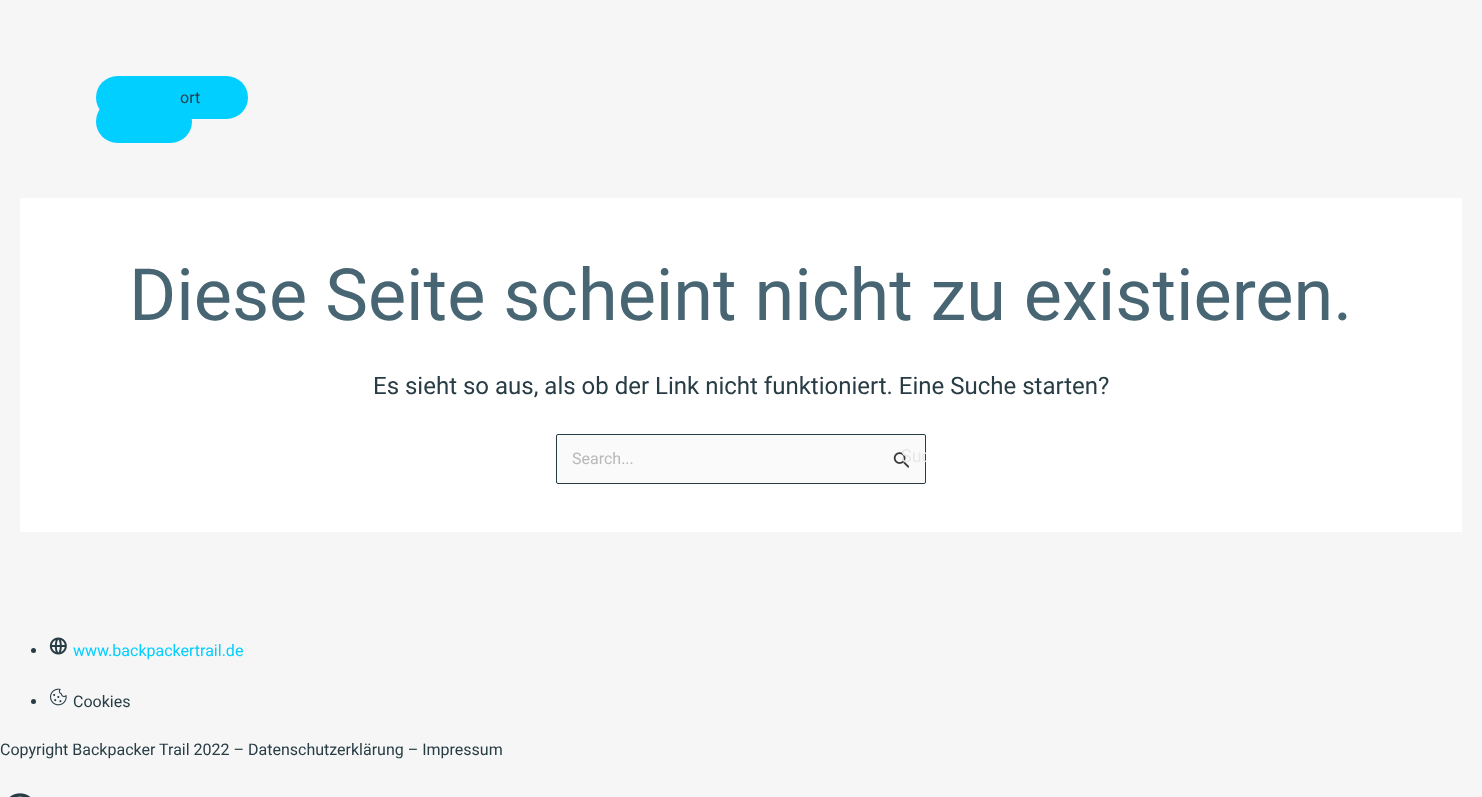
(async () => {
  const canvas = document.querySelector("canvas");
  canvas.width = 1482;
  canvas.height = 797;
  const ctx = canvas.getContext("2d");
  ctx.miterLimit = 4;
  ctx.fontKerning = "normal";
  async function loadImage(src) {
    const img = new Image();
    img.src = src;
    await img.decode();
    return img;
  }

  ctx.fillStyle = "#f6f6f6";
  ctx.fillRect(0, 0, 1482, 797);
  ctx.fillStyle = "#00cfff";
  ctx.beginPath();
  ctx.roundRect(96, 76, 48, 43, [21.5, 0, 0, 21.5]);
  ctx.fill();
  ctx.beginPath();
  ctx.roundRect(144, 76, 104, 43, [0, 21.5, 21.5, 0]);
  ctx.fill();
  ctx.fillStyle = "#ffffff";
  ctx.fillRect(20, 198, 1442, 334);
  ctx.fillStyle = "#fafafa";
  ctx.beginPath();
  ctx.roundRect(556.5, 434.5, 369, 49, 1.5);
  ctx.fill();
  ctx.strokeStyle = "#283c45";
  ctx.stroke();
  ctx.drawImage(await loadImage("img/1.png"), 893, 452, 16, 16);
  ctx.fillStyle = "#283c45";
  ctx.beginPath();
  ctx.arc(33.5, 650.5, 2.5, 0, Math.PI * 2);
  ctx.fill();
  ctx.drawImage(await loadImage("img/2.png"), 49, 637, 18, 18);
  ctx.beginPath();
  ctx.arc(33.5, 701.5, 2.5, 0, Math.PI * 2);
  ctx.fill();
  ctx.drawImage(await loadImage("img/3.png"), 50, 688, 17, 18);
  ctx.drawImage(await loadImage("img/4.png"), 9, 793, 22, 4);
  ctx.font = "16px Roboto";
  ctx.fillText("ort", 180, 103);
  ctx.fillStyle = "#00cfff";
  ctx.beginPath();
  ctx.roundRect(96, 100, 96, 43, 21.5);
  ctx.fill();
  ctx.font = "72px Roboto";
  ctx.fillStyle = "#476572";
  ctx.fillText("Diese Seite scheint nicht zu existieren.", 129, 320);
  ctx.font = "24px Roboto";
  ctx.fillStyle = "#283c45";
  ctx.fillText("Es sieht so aus, als ob der Link nicht funktioniert. Eine Suche starten?", 373, 394);
  ctx.font = "16px Roboto";
  ctx.fillStyle = "#b8b8b8";
  ctx.fillText("Search...", 572, 464);
  ctx.save();
  ctx.beginPath();
  ctx.roundRect(881, 434, 45, 44, 2);
  ctx.clip();
  ctx.font = "18px Roboto";
  ctx.fillStyle = "#e7e8e8";
  ctx.fillText("Suc", 901, 462);
  ctx.restore();
  ctx.fillStyle = "#00cfff";
  ctx.fillText("www.backpackertrail.de", 73, 656);
  ctx.fillStyle = "#283c45";
  ctx.fillText("Cookies", 73, 707);
  ctx.fillText("Copyright Backpacker Trail 2022 – Datenschutzerklärung – Impressum", 0, 755);
})();
